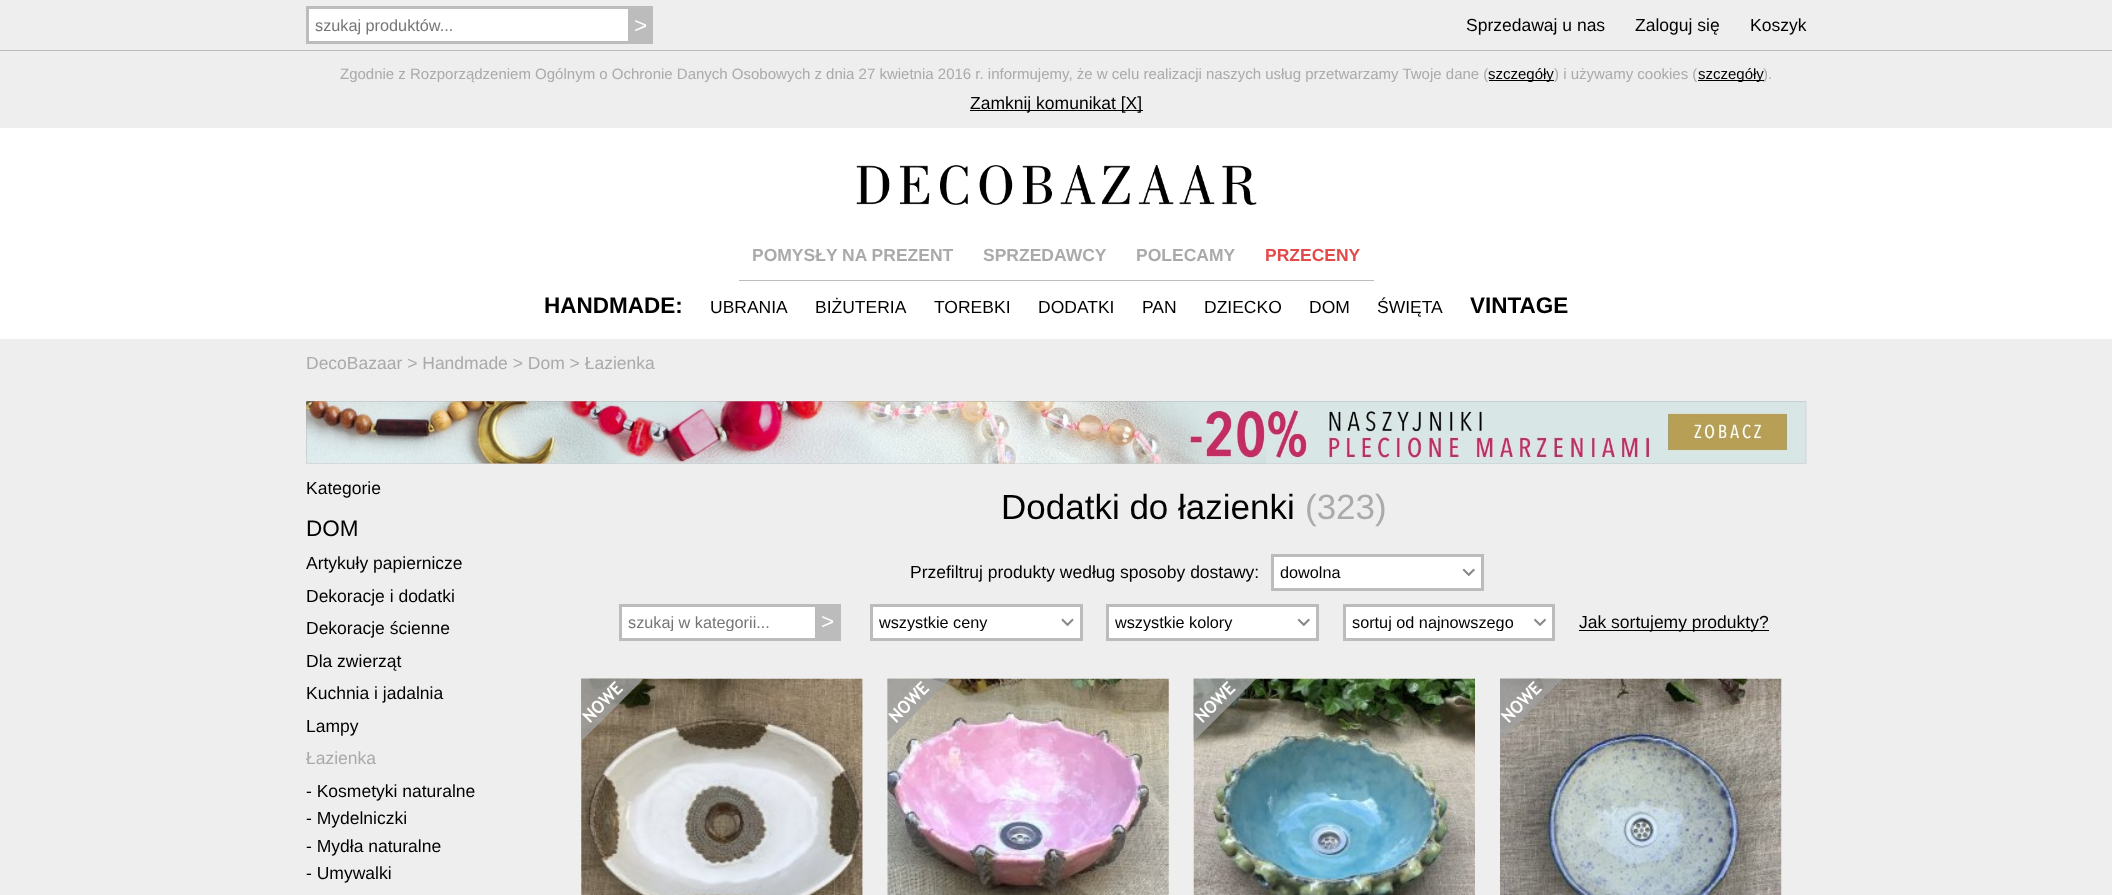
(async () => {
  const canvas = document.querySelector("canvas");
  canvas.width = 2112;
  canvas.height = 895;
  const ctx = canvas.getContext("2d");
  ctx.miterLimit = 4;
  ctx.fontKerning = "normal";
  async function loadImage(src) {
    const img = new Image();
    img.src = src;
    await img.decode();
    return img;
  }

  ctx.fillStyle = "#ffffff";
  ctx.fillRect(0, 0, 2112, 895);
  ctx.fillStyle = "#eeeeee";
  ctx.fillRect(0, 0, 2112, 50);
  ctx.fillStyle = "#ffffff";
  ctx.beginPath();
  ctx.rect(307.5, 7.5, 322, 35);
  ctx.fill();
  ctx.strokeStyle = "#bcbcbc";
  ctx.lineWidth = 3;
  ctx.stroke();
  for (const [x, y, w, h, color] of [
    [631, 6, 22, 38, "#bcbcbc"],
    [0, 51, 2112, 77, "#eeeeee"],
    [0, 50, 2112, 1, "#bcbcbc"],
    [1489, 80, 65, 1, "#000000"],
    [1698, 80, 66, 1, "#000000"],
    [970, 110, 173, 1, "#000000"],
  ]) {
    ctx.fillStyle = color;
    ctx.fillRect(x, y, w, h);
  }
  ctx.drawImage(await loadImage("img/1.png"), 856, 165, 401, 40);
  ctx.fillStyle = "#bcbcbc";
  ctx.fillRect(739, 280, 635, 1);
  ctx.fillStyle = "#eeeeee";
  ctx.fillRect(0, 339, 2112, 556);
  ctx.drawImage(await loadImage("img/2.png"), 306, 401, 1501, 63);
  ctx.fillStyle = "#ffffff";
  ctx.fillRect(1274, 557, 207, 31);
  ctx.drawImage(await loadImage("img/3.png"), 1462, 568, 13, 9);
  ctx.strokeRect(1272.5, 555.5, 210, 34);
  ctx.fillRect(622, 607, 193, 31);
  ctx.strokeRect(620.5, 605.5, 197, 34);
  ctx.fillStyle = "#bcbcbc";
  ctx.fillRect(815, 604, 26, 37);
  ctx.fillStyle = "#ffffff";
  ctx.fillRect(873, 607, 207, 31);
  ctx.drawImage(await loadImage("img/4.png"), 1061, 618, 13, 9);
  ctx.strokeRect(871.5, 605.5, 210, 34);
  ctx.fillRect(1109, 607, 207, 31);
  ctx.drawImage(await loadImage("img/3.png"), 1297, 618, 13, 9);
  ctx.strokeRect(1107.5, 605.5, 210, 34);
  ctx.fillRect(1346, 607, 206, 31);
  ctx.drawImage(await loadImage("img/5.png"), 1534, 618, 12, 8);
  ctx.strokeRect(1344.5, 605.5, 209, 34);
  ctx.fillStyle = "#000000";
  ctx.fillRect(1579, 630, 190, 1);
  ctx.fillStyle = "#ffffff";
  ctx.fillRect(581, 679, 282, 216);
  ctx.drawImage(await loadImage("img/6.png"), 581, 678, 282, 217);
  ctx.drawImage(await loadImage("img/7.png"), 581, 678, 63, 63);
  ctx.drawImage(await loadImage("img/8.png"), 887, 678, 282, 217);
  ctx.drawImage(await loadImage("img/9.png"), 887, 678, 63, 63);
  ctx.drawImage(await loadImage("img/10.png"), 1193, 678, 282, 217);
  ctx.drawImage(await loadImage("img/11.png"), 1193, 678, 64, 63);
  ctx.drawImage(await loadImage("img/12.png"), 1500, 678, 282, 217);
  ctx.drawImage(await loadImage("img/13.png"), 1500, 678, 62, 63);
  ctx.font = "16.25px Liberation Sans";
  ctx.fillStyle = "#757575";
  ctx.fillText("szukaj produktów...", 315, 31);
  ctx.font = "22.5px Liberation Sans";
  ctx.fillStyle = "#ffffff";
  ctx.fillText(">", 634, 33);
  ctx.font = "17.5px Liberation Sans";
  ctx.fillStyle = "#000000";
  for (const [text, x, y] of [
    ["Sprzedawaj u nas", 1466, 31],
    ["Zaloguj się", 1635, 31],
    ["Koszyk", 1750, 31],
  ]) {
    ctx.fillText(text, x, y);
  }
  ctx.font = "15px Liberation Sans";
  ctx.fillStyle = "#aaaaaa";
  ctx.fillText("Zgodnie z Rozporządzeniem Ogólnym o Ochronie Danych Osobowych z dnia 27 kwietnia 2016 r. informujemy, że w celu realizacji naszych usług przetwarzamy Twoje dane (", 340, 79);
  ctx.fillStyle = "#000000";
  ctx.fillText("szczegóły", 1488, 79);
  ctx.fillStyle = "#aaaaaa";
  ctx.fillText(") i używamy cookies (", 1554, 79);
  ctx.fillStyle = "#000000";
  ctx.fillText("szczegóły", 1698, 79);
  ctx.fillStyle = "#aaaaaa";
  ctx.fillText(").", 1763, 79);
  ctx.font = "17.5px Liberation Sans";
  ctx.fillStyle = "#000000";
  ctx.fillText("Zamknij komunikat [X]", 970, 109);
  ctx.font = "bold 17.5px Liberation Sans";
  ctx.fillStyle = "#aaaaaa";
  for (const [text, x, y] of [
    ["POMYSŁY NA PREZENT", 752, 261],
    ["SPRZEDAWCY", 983, 261],
    ["POLECAMY", 1136, 261],
  ]) {
    ctx.fillText(text, x, y);
  }
  ctx.fillStyle = "#e34b4b";
  ctx.fillText("PRZECENY", 1265, 261);
  ctx.font = "bold 22.5px Liberation Sans";
  ctx.fillStyle = "#000000";
  ctx.fillText("HANDMADE:", 544, 313);
  ctx.font = "17.5px Liberation Sans";
  for (const [text, x, y] of [
    ["UBRANIA", 710, 313],
    ["BIŻUTERIA", 815, 313],
    ["TOREBKI", 934, 313],
    ["DODATKI", 1038, 313],
    ["PAN", 1142, 313],
    ["DZIECKO", 1204, 313],
    ["DOM", 1309, 313],
    ["ŚWIĘTA", 1377, 313],
  ]) {
    ctx.fillText(text, x, y);
  }
  ctx.font = "bold 22.5px Liberation Sans";
  ctx.fillText("VINTAGE", 1470, 313);
  ctx.font = "17.5px Liberation Sans";
  ctx.fillStyle = "#aaaaaa";
  ctx.fillText("DecoBazaar > Handmade > Dom > Łazienka", 306, 369);
  ctx.fillStyle = "#000000";
  ctx.fillText("Kategorie", 306, 494);
  ctx.font = "22.5px Liberation Sans";
  ctx.fillText("DOM", 306, 536);
  ctx.font = "17.5px Liberation Sans";
  for (const [text, x, y] of [
    ["Artykuły papiernicze", 306, 569],
    ["Dekoracje i dodatki", 306, 602],
    ["Dekoracje ścienne", 306, 634],
    ["Dla zwierząt", 306, 667],
    ["Kuchnia i jadalnia", 306, 699],
    ["Lampy", 306, 732],
  ]) {
    ctx.fillText(text, x, y);
  }
  ctx.fillStyle = "#aaaaaa";
  ctx.fillText("Łazienka", 306, 764);
  ctx.fillStyle = "#000000";
  for (const [text, x, y] of [
    ["- Kosmetyki naturalne", 306, 797],
    ["- Mydelniczki", 306, 824],
    ["- Mydła naturalne", 306, 852],
    ["- Umywalki", 306, 879],
  ]) {
    ctx.fillText(text, x, y);
  }
  ctx.font = "35px Liberation Sans";
  ctx.fillText("Dodatki do łazienki", 1001, 519);
  ctx.fillStyle = "#aaaaaa";
  ctx.fillText("(323)", 1305, 519);
  ctx.font = "17.5px Liberation Sans";
  ctx.fillStyle = "#000000";
  ctx.fillText("Przefiltruj produkty według sposoby dostawy:", 910, 578);
  ctx.font = "16.25px Liberation Sans";
  ctx.fillText("dowolna", 1280, 578);
  ctx.save();
  ctx.beginPath();
  ctx.rect(628, 613, 182, 18);
  ctx.clip();
  ctx.fillStyle = "#757575";
  ctx.fillText("szukaj w kategorii...", 628, 628);
  ctx.restore();
  ctx.font = "22.5px Liberation Sans";
  ctx.fillStyle = "#ffffff";
  ctx.fillText(">", 821, 629);
  ctx.save();
  ctx.beginPath();
  ctx.rect(879, 613, 176, 18);
  ctx.clip();
  ctx.font = "16.25px Liberation Sans";
  ctx.fillStyle = "#000000";
  ctx.fillText("wszystkie ceny", 879, 628);
  ctx.restore();
  ctx.save();
  ctx.beginPath();
  ctx.rect(1115, 613, 176, 18);
  ctx.clip();
  ctx.font = "16.25px Liberation Sans";
  ctx.fillStyle = "#000000";
  ctx.fillText("wszystkie kolory", 1115, 628);
  ctx.restore();
  ctx.save();
  ctx.beginPath();
  ctx.rect(1351, 613, 177, 18);
  ctx.clip();
  ctx.font = "16.25px Liberation Sans";
  ctx.fillStyle = "#000000";
  ctx.fillText("sortuj od najnowszego", 1352, 628);
  ctx.restore();
  ctx.font = "17.5px Liberation Sans";
  ctx.fillStyle = "#000000";
  ctx.fillText("Jak sortujemy produkty?", 1579, 628);
})();
